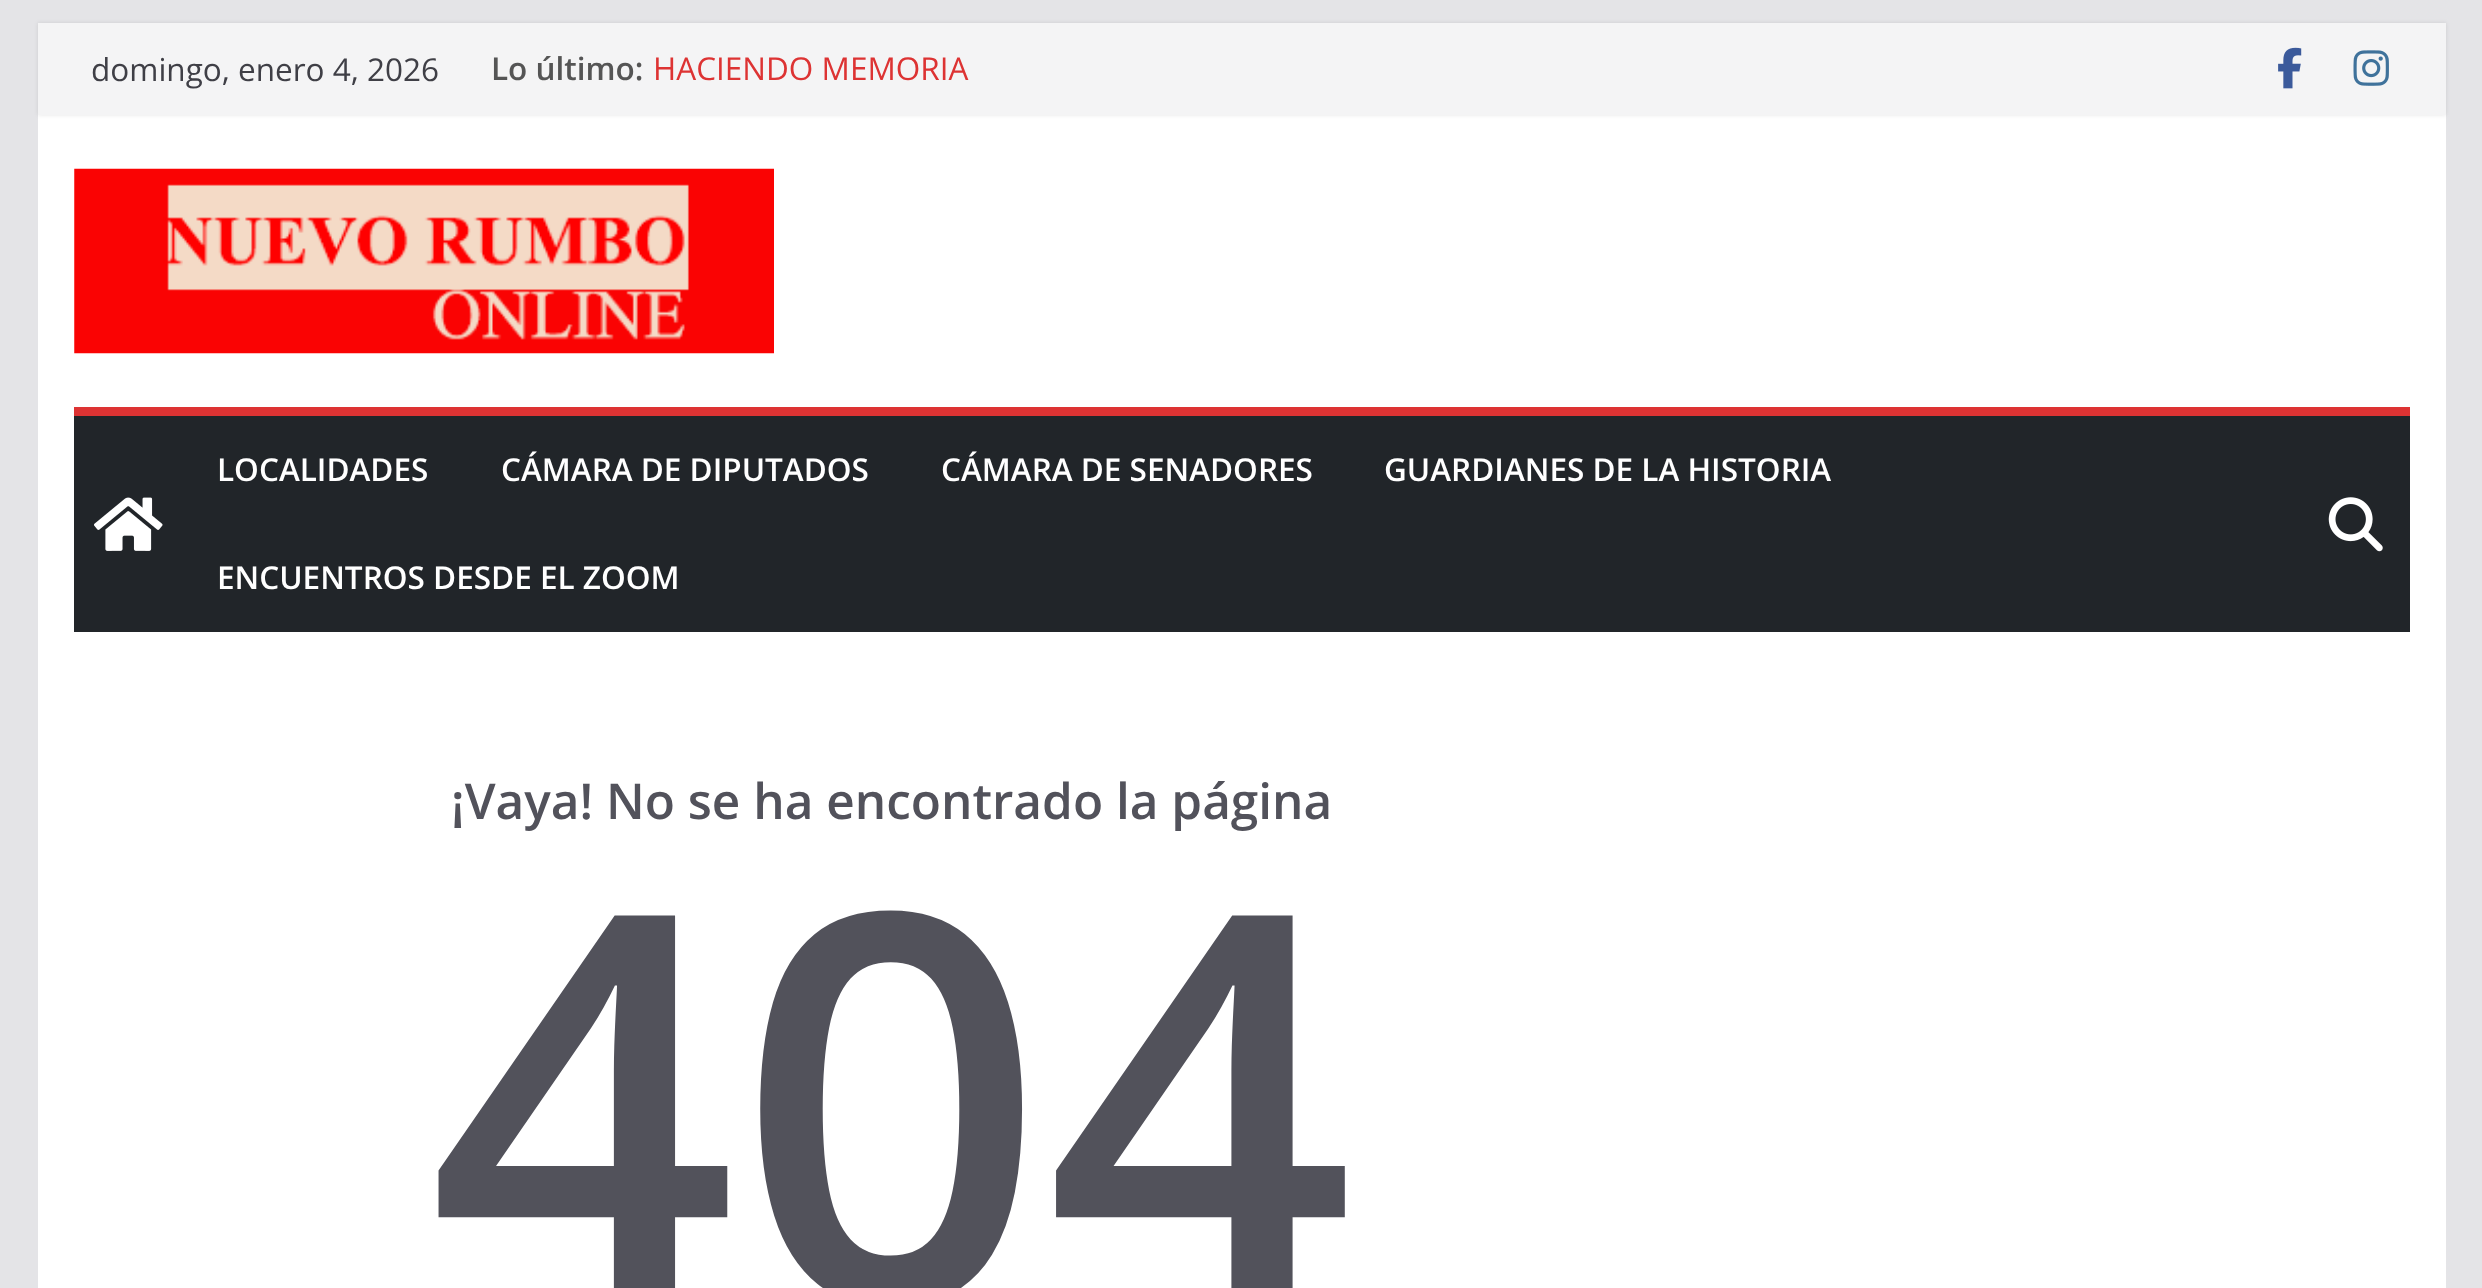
(async () => {
  const canvas = document.querySelector("canvas");
  canvas.width = 2482;
  canvas.height = 1288;
  const ctx = canvas.getContext("2d");
  ctx.miterLimit = 4;
  ctx.fontKerning = "normal";
  async function loadImage(src) {
    const img = new Image();
    img.src = src;
    await img.decode();
    return img;
  }

  ctx.fillStyle = "#e4e4e7";
  ctx.fillRect(0, 0, 2482, 1288);
  ctx.fillStyle = "#ffffff";
  ctx.fillRect(38, 115, 2408, 1173);
  ctx.fillStyle = "rgba(0, 0, 0, 0.1)";
  ctx.filter = "blur(2px)";
  ctx.beginPath();
  ctx.rect(38, 23, 2408, 92);
  ctx.fill();
  ctx.filter = "none";
  ctx.fillStyle = "#f4f4f5";
  ctx.fillRect(38, 23, 2408, 92);
  ctx.drawImage(await loadImage("img/1.png"), 2278, 47, 24, 42);
  ctx.drawImage(await loadImage("img/2.png"), 2353, 50, 36, 36);
  ctx.drawImage(await loadImage("img/3.png"), 74, 168, 700, 186);
  ctx.fillStyle = "#212529";
  ctx.fillRect(74, 416, 2336, 216);
  ctx.fillStyle = "#dd3333";
  ctx.fillRect(74, 407, 2336, 9);
  ctx.drawImage(await loadImage("img/4.png"), 94, 497, 69, 54);
  ctx.drawImage(await loadImage("img/5.png"), 2328, 497, 55, 55);
  ctx.font = "31.5px Open Sans";
  ctx.fillStyle = "#3f3f46";
  ctx.fillText("domingo, enero 4, 2026", 91, 81);
  ctx.font = "600 31.5px Open Sans";
  ctx.fillStyle = "#555555";
  ctx.fillText("Lo último:", 491, 80);
  ctx.font = "31.5px Open Sans";
  ctx.fillStyle = "#dd3333";
  ctx.fillText("HACIENDO MEMORIA", 653, 80);
  ctx.font = "600 31.5px Open Sans";
  ctx.fillStyle = "#ffffff";
  for (const [text, x, y] of [
    ["LOCALIDADES", 217, 481],
    ["CÁMARA DE DIPUTADOS", 501, 481],
    ["CÁMARA DE SENADORES", 941, 481],
    ["GUARDIANES DE LA HISTORIA", 1384, 481],
    ["ENCUENTROS DESDE EL ZOOM", 217, 589],
  ]) {
    ctx.fillText(text, x, y);
  }
  ctx.font = "600 49.5px Open Sans";
  ctx.fillStyle = "#52525b";
  ctx.fillText("¡Vaya! No se ha encontrado la página", 451, 819);
  ctx.font = "600 540px Open Sans";
  ctx.fillText("404", 428, 1302);
})();
